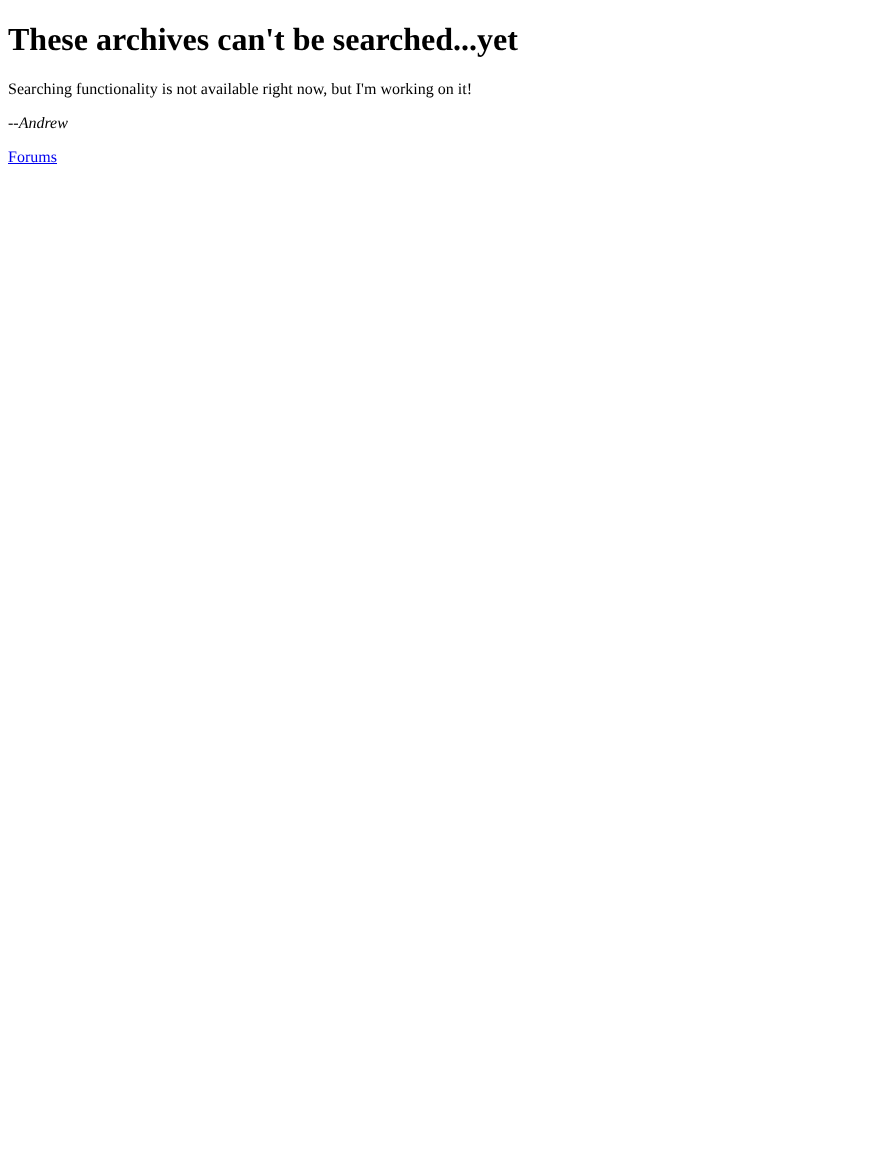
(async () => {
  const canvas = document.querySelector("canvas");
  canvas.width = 895;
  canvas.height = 1170;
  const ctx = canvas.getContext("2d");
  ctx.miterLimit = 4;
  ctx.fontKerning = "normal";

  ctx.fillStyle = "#ffffff";
  ctx.fillRect(0, 0, 895, 1170);
  ctx.fillStyle = "#0000ee";
  ctx.fillRect(8, 163, 49, 1);
  ctx.font = "bold 32px Liberation Serif";
  ctx.fillStyle = "#000000";
  ctx.fillText("These archives can't be searched...yet", 8, 50);
  ctx.font = "16px Liberation Serif";
  ctx.fillText("Searching functionality is not available right now, but I'm working on it!", 8, 94);
  ctx.font = "italic 16px Liberation Serif";
  ctx.fillText("--Andrew", 8, 128);
  ctx.font = "16px Liberation Serif";
  ctx.fillStyle = "#0000ee";
  ctx.fillText("Forums", 8, 162);
})();
